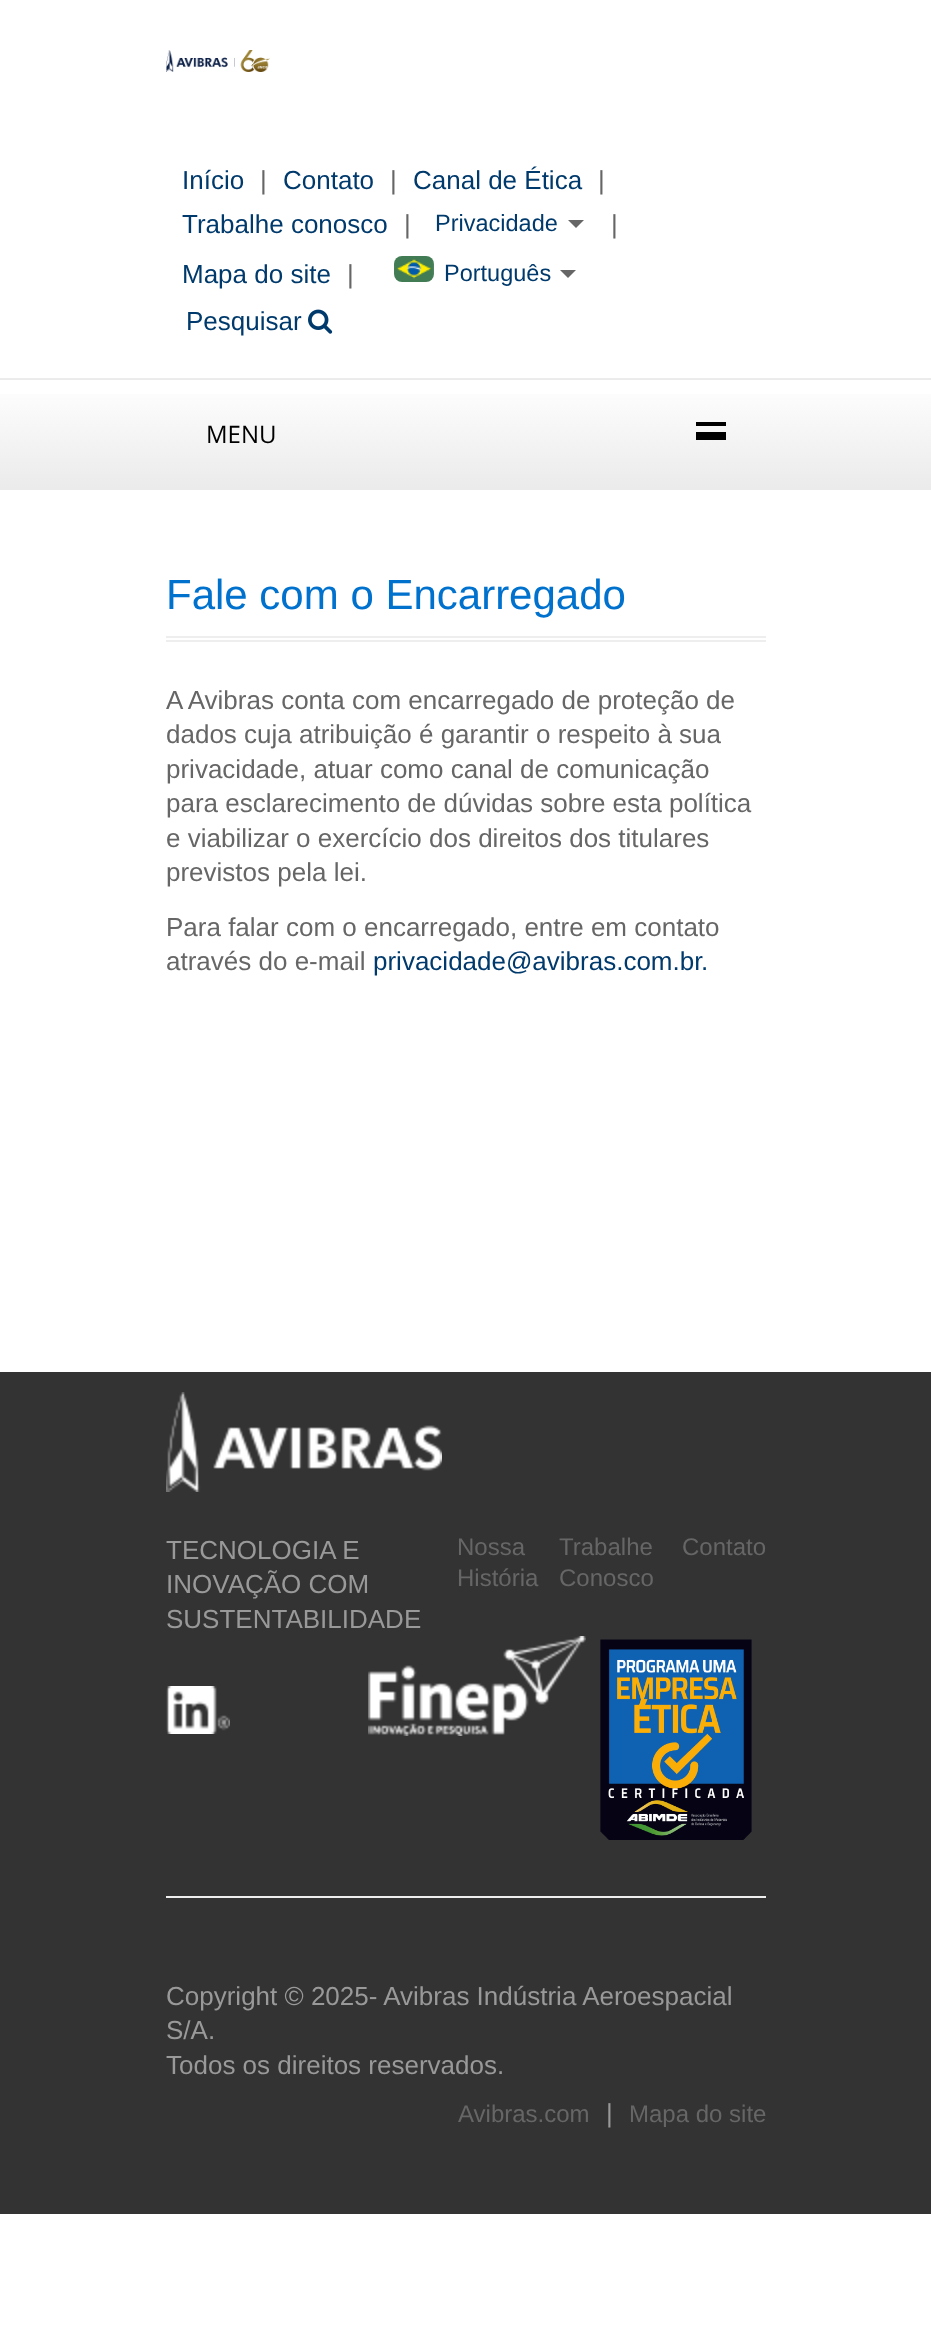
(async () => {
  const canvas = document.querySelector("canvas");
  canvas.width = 931;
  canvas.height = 2340;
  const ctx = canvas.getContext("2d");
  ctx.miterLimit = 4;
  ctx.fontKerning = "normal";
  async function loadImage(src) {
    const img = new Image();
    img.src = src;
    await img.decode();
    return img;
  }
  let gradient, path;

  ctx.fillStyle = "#ffffff";
  ctx.fillRect(0, 0, 931, 2340);
  ctx.drawImage(await loadImage("img/1.png"), 166, 50, 104, 22);
  ctx.fillStyle = "#666666";
  path = new Path2D("M568 220H584L576 228Z");
  ctx.fill(path);
  ctx.drawImage(await loadImage("img/2.png"), 394, 256, 40, 26);
  path = new Path2D("M560 270H576L568 278Z");
  ctx.fill(path);
  ctx.drawImage(await loadImage("img/3.png"), 308, 309, 25, 25);
  gradient = ctx.createLinearGradient(466, 272, 466, 380);
  gradient.addColorStop(0, "#ffffff");
  gradient.addColorStop(1, "#ebebeb");
  ctx.fillStyle = gradient;
  ctx.fillRect(0, 378, 931, 2);
  gradient = ctx.createLinearGradient(466, 380, 466, 488);
  gradient.addColorStop(0, "#ffffff");
  gradient.addColorStop(1, "#ebebeb");
  ctx.fillStyle = gradient;
  ctx.fillRect(0, 394, 931, 94);
  for (const [x, y, w, h, color] of [
    [0, 488, 931, 2, "#ebebeb"],
    [696, 422, 30, 4, "#000000"],
    [696, 432, 30, 8, "#000000"],
    [166, 636, 600, 2, "#eeeeee"],
    [166, 640, 600, 2, "#eeeeee"],
    [0, 1372, 931, 842, "#333333"],
  ]) {
    ctx.fillStyle = color;
    ctx.fillRect(x, y, w, h);
  }
  ctx.drawImage(await loadImage("img/4.png"), 166, 1392, 276, 100);
  ctx.drawImage(await loadImage("img/5.png"), 166, 1686, 64, 48);
  ctx.drawImage(await loadImage("img/6.png"), 368, 1636, 218, 100);
  ctx.drawImage(await loadImage("img/7.png"), 600, 1639, 152, 201);
  ctx.fillStyle = "#eeeeee";
  ctx.fillRect(166, 1896, 600, 2);
  ctx.font = "26px Liberation Sans";
  ctx.fillStyle = "#003a6c";
  ctx.fillText("Início", 182, 189);
  ctx.fillStyle = "#666666";
  ctx.fillText("|", 260, 189);
  ctx.fillStyle = "#003a6c";
  ctx.fillText("Contato", 283, 189);
  ctx.fillStyle = "#666666";
  ctx.fillText("|", 390, 189);
  ctx.fillStyle = "#003a6c";
  ctx.fillText("Canal de Ética", 413, 189);
  ctx.fillStyle = "#666666";
  ctx.fillText("|", 598, 189);
  ctx.fillStyle = "#003a6c";
  ctx.fillText("Trabalhe conosco", 182, 233);
  ctx.fillStyle = "#666666";
  ctx.fillText("|", 404, 233);
  ctx.font = "23.5px Liberation Sans";
  ctx.fillStyle = "#003a6c";
  ctx.fillText("Privacidade", 435, 231);
  ctx.font = "26px Liberation Sans";
  ctx.fillStyle = "#666666";
  ctx.fillText("|", 611, 233);
  ctx.fillStyle = "#003a6c";
  ctx.fillText("Mapa do site", 182, 283);
  ctx.fillStyle = "#666666";
  ctx.fillText("|", 347, 283);
  ctx.font = "23.5px Liberation Sans";
  ctx.fillStyle = "#003a6c";
  ctx.fillText("Português", 444, 281);
  ctx.font = "26px Liberation Sans";
  ctx.fillText("Pesquisar", 186, 330);
  ctx.font = "24px Open Sans";
  ctx.fillStyle = "#000000";
  ctx.fillText("MENU", 206, 443);
  ctx.font = "42px Liberation Sans";
  ctx.fillStyle = "#0072ce";
  ctx.fillText("Fale com o Encarregado", 166, 609);
  ctx.font = "26px Liberation Sans";
  ctx.fillStyle = "#666666";
  for (const [text, x, y] of [
    ["A Avibras conta com encarregado de proteção de", 166, 709],
    ["dados cuja atribuição é garantir o respeito à sua", 166, 743],
    ["privacidade, atuar como canal de comunicação", 166, 778],
    ["para esclarecimento de dúvidas sobre esta política", 166, 812],
    ["e viabilizar o exercício dos direitos dos titulares", 166, 847],
    ["previstos pela lei.", 166, 881],
    ["Para falar com o encarregado, entre em contato", 166, 936],
    ["através do e-mail", 166, 970],
  ]) {
    ctx.fillText(text, x, y);
  }
  ctx.fillStyle = "#003a6c";
  ctx.fillText("privacidade@avibras.com.br", 373, 970);
  ctx.fillText(".", 701, 970);
  ctx.fillStyle = "#999999";
  for (const [text, x, y] of [
    ["TECNOLOGIA E", 166, 1559],
    ["INOVAÇÃO COM", 166, 1593],
    ["SUSTENTABILIDADE", 166, 1628],
  ]) {
    ctx.fillText(text, x, y);
  }
  ctx.font = "24px Liberation Sans";
  ctx.fillStyle = "#666666";
  for (const [text, x, y] of [
    ["Nossa", 457, 1555],
    ["História", 457, 1586],
    ["Trabalhe", 559, 1555],
    ["Conosco", 559, 1586],
    ["Contato", 682, 1555],
  ]) {
    ctx.fillText(text, x, y);
  }
  ctx.font = "26px Liberation Sans";
  ctx.fillStyle = "#999999";
  for (const [text, x, y] of [
    ["Copyright © 2025- Avibras Indústria Aeroespacial", 166, 2005],
    ["S/A.", 166, 2039],
    ["Todos os direitos reservados.", 166, 2074],
  ]) {
    ctx.fillText(text, x, y);
  }
  ctx.font = "24px Liberation Sans";
  ctx.fillStyle = "#666666";
  ctx.fillText("Avibras.com", 458, 2122);
  ctx.font = "26px Liberation Sans";
  ctx.fillStyle = "#999999";
  ctx.fillText("|", 606, 2122);
  ctx.font = "24px Liberation Sans";
  ctx.fillStyle = "#666666";
  ctx.fillText("Mapa do site", 629, 2122);
})();
